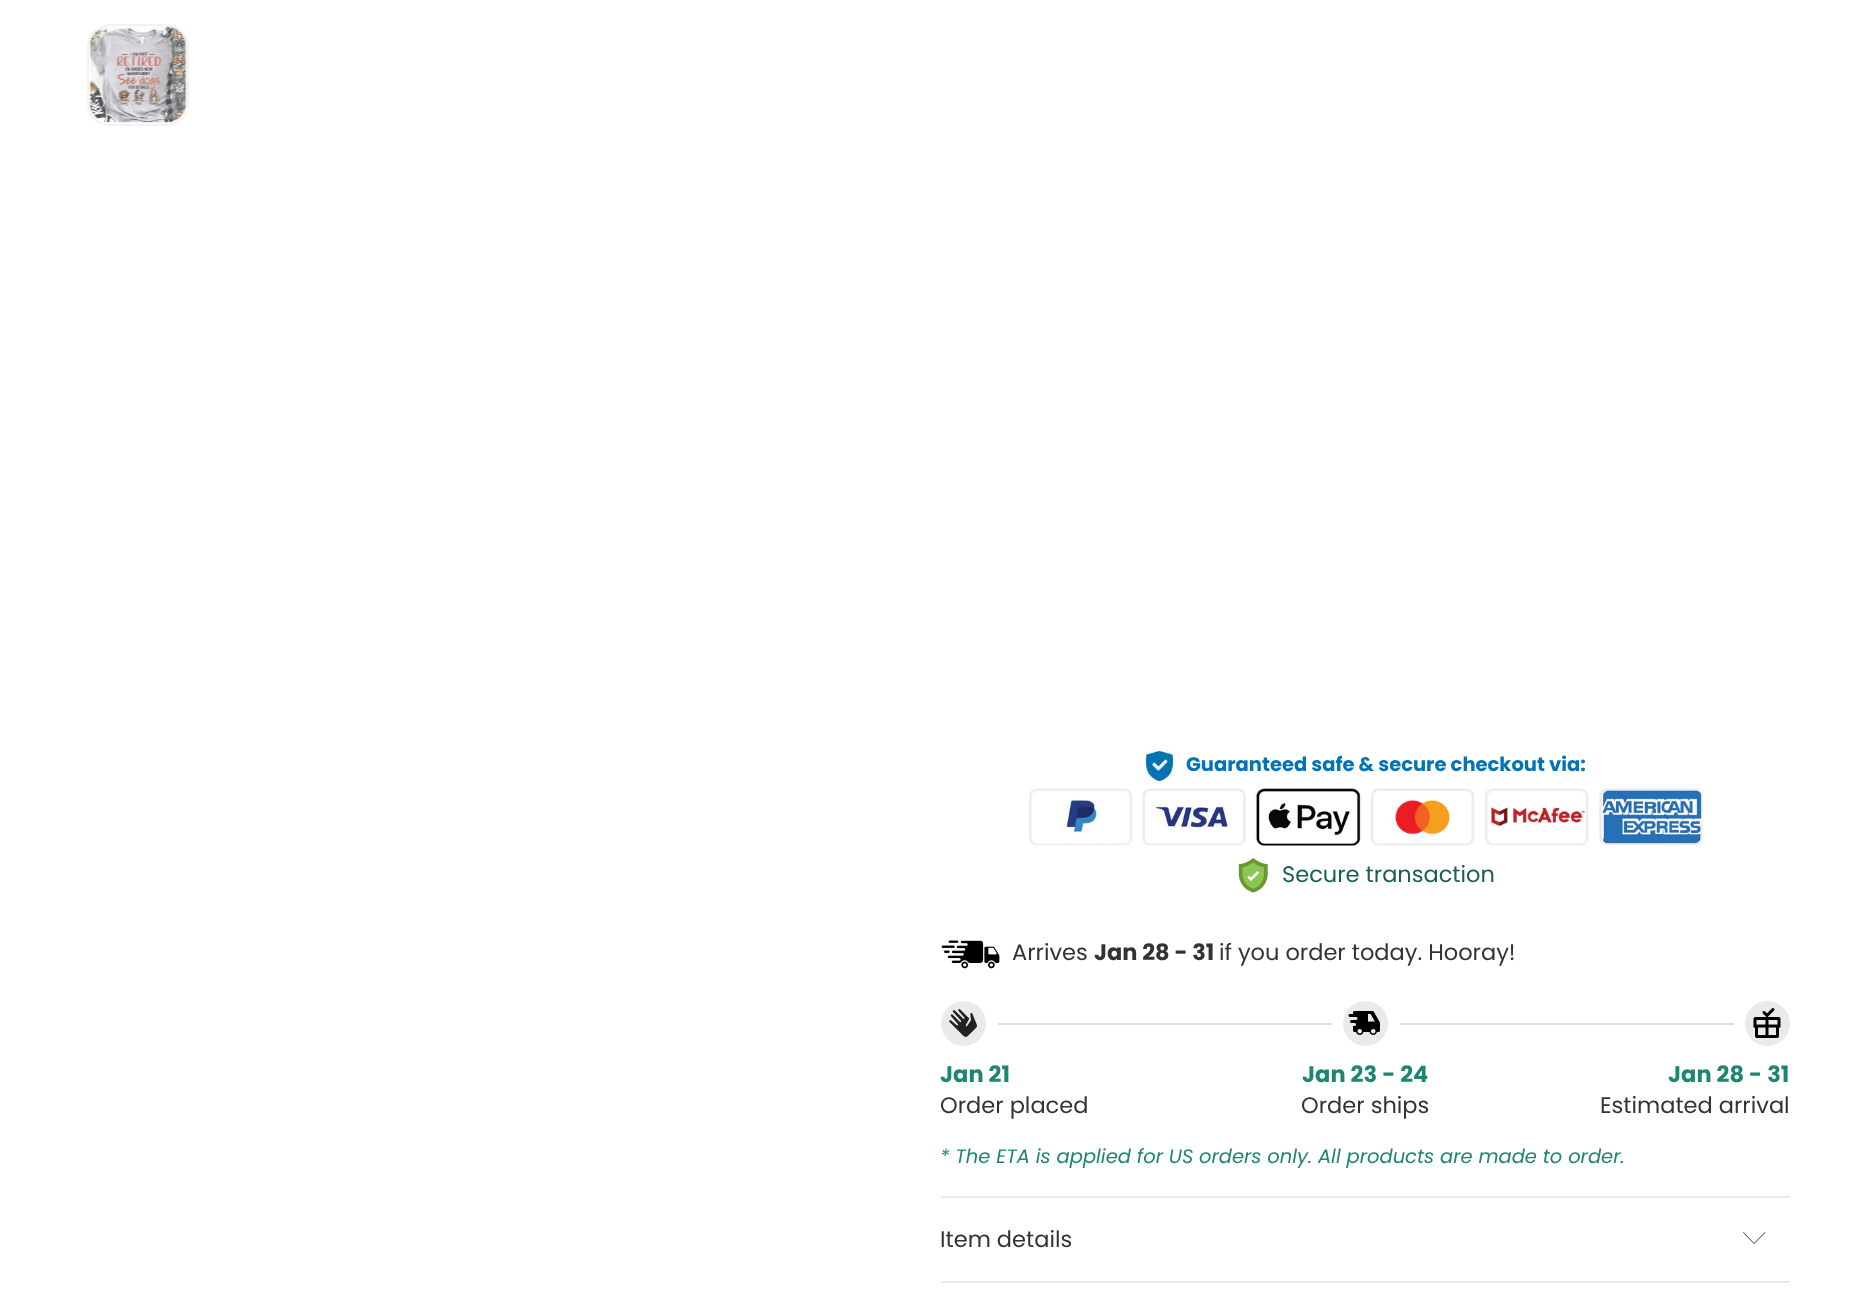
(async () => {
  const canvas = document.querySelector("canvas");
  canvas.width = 1851;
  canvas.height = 1295;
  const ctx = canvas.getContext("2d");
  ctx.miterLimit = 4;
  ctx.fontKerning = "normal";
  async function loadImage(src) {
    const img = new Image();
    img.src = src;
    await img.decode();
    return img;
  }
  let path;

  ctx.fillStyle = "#ffffff";
  ctx.fillRect(0, 0, 1851, 1295);
  ctx.beginPath();
  ctx.roundRect(88, 25, 100, 100, 22);
  ctx.strokeStyle = "#f2f2f2";
  ctx.lineWidth = 2;
  ctx.stroke();
  ctx.drawImage(await loadImage("img/1.png"), 89, 26, 98, 97);
  ctx.drawImage(await loadImage("img/2.png"), 1144, 751, 30, 30);
  ctx.drawImage(await loadImage("img/3.png"), 1029, 788, 674, 58);
  ctx.drawImage(await loadImage("img/4.png"), 1238, 858, 30, 35);
  ctx.drawImage(await loadImage("img/5.png"), 941, 940, 59, 29);
  ctx.fillStyle = "#eaeaea";
  ctx.beginPath();
  ctx.arc(963.5, 1023.5, 22.5, 0, Math.PI * 2);
  ctx.fill();
  ctx.drawImage(await loadImage("img/6.png"), 949, 1009, 28, 28);
  ctx.fillStyle = "#dedede";
  ctx.fillRect(998, 1023, 736, 2);
  ctx.fillStyle = "#ffffff";
  ctx.fillRect(1332, 1023, 68, 2);
  ctx.fillStyle = "#eaeaea";
  ctx.beginPath();
  ctx.arc(1365.5, 1023.5, 22.5, 0, Math.PI * 2);
  ctx.fill();
  ctx.drawImage(await loadImage("img/7.png"), 1348, 1011, 32, 24);
  ctx.beginPath();
  ctx.arc(1767.5, 1023.5, 22.5, 0, Math.PI * 2);
  ctx.fill();
  ctx.drawImage(await loadImage("img/8.png"), 1753, 1008, 28, 30);
  ctx.fillRect(941, 1196, 849, 2);
  ctx.fillRect(941, 1281, 849, 2);
  ctx.fillStyle = "#333333";
  path = new Path2D("M1754 1244L1743 1232.5L1743.5 1232L1754 1243L1765 1232L1765.5 1232.5Z");
  ctx.fill(path);
  ctx.font = "bold 19.5px Poppins";
  ctx.fillStyle = "#0273b6";
  ctx.fillText("Guaranteed safe & secure checkout via:", 1186, 771);
  ctx.font = "22.5px Poppins";
  ctx.fillStyle = "#165f53";
  ctx.fillText("Secure transaction", 1282, 882);
  ctx.fillStyle = "#333333";
  ctx.fillText("Arrives", 1012, 960);
  ctx.font = "bold 22.5px Poppins";
  ctx.fillText("Jan 28 - 31", 1094, 960);
  ctx.font = "22.5px Poppins";
  ctx.fillText("if you order today. Hooray!", 1219, 960);
  ctx.letterSpacing = "0.1px";
  ctx.font = "bold 22.5px Poppins";
  ctx.fillStyle = "#1e8570";
  ctx.fillText("Jan 21", 940, 1082);
  ctx.letterSpacing = "0px";
  ctx.font = "22.5px Poppins";
  ctx.fillStyle = "#333333";
  ctx.fillText("Order placed", 940, 1113);
  ctx.letterSpacing = "0.1px";
  ctx.font = "bold 22.5px Poppins";
  ctx.fillStyle = "#1e8570";
  ctx.fillText("Jan 23 - 24", 1302, 1082);
  ctx.letterSpacing = "0px";
  ctx.font = "22.5px Poppins";
  ctx.fillStyle = "#333333";
  ctx.fillText("Order ships", 1301, 1113);
  ctx.letterSpacing = "0.1px";
  ctx.font = "bold 22.5px Poppins";
  ctx.fillStyle = "#1e8570";
  ctx.fillText("Jan 28 - 31", 1668, 1082);
  ctx.letterSpacing = "0px";
  ctx.font = "22.5px Poppins";
  ctx.fillStyle = "#333333";
  ctx.fillText("Estimated arrival", 1600, 1113);
  ctx.font = "italic 19.5px Poppins";
  ctx.fillStyle = "#1e8570";
  ctx.fillText("* The ETA is applied for US orders only. All products are made to order.", 940, 1163);
  ctx.font = "22.5px Poppins";
  ctx.fillStyle = "#333333";
  ctx.fillText("Item details", 940, 1247);
})();
